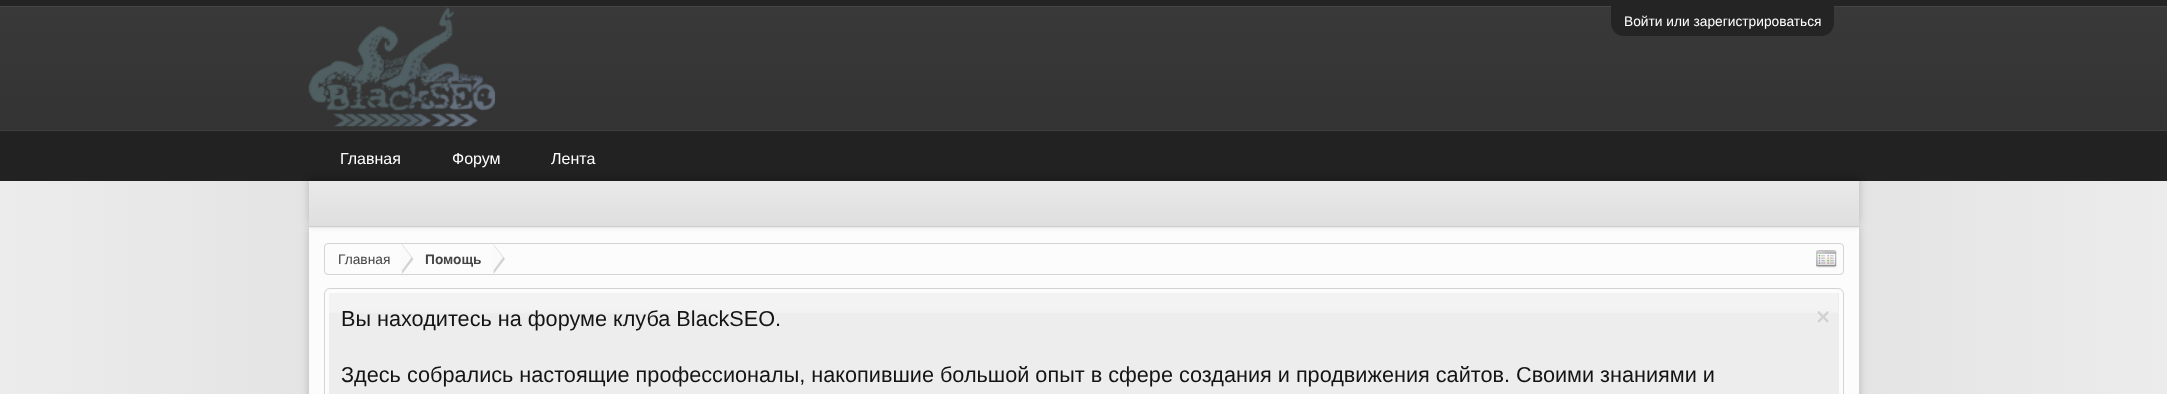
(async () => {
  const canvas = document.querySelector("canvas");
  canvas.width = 2167;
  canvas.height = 394;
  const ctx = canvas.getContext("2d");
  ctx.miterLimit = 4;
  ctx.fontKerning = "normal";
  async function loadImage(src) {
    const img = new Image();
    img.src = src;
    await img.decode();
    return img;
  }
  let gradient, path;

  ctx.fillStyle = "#ffffff";
  ctx.fillRect(0, 0, 2167, 394);
  gradient = ctx.createLinearGradient(0, 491, 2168, 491);
  gradient.addColorStop(0, "#ececec");
  gradient.addColorStop(0.5, "#d0d0d0");
  gradient.addColorStop(1, "#ececec");
  ctx.fillStyle = gradient;
  ctx.fillRect(0, 181, 2167, 213);
  ctx.fillStyle = "#242424";
  ctx.fillRect(0, 0, 2167, 6);
  gradient = ctx.createLinearGradient(1084, 6.2, 1084, 131);
  gradient.addColorStop(0, "#393939");
  gradient.addColorStop(1, "#333333");
  ctx.fillStyle = gradient;
  ctx.fillRect(0, 7, 2167, 123);
  ctx.fillStyle = "#454545";
  ctx.fillRect(0, 6, 2167, 1);
  ctx.fillStyle = "#242424";
  ctx.beginPath();
  ctx.roundRect(1611, 6, 223, 30, [0, 0, 13, 13]);
  ctx.fill();
  ctx.fillStyle = "#222222";
  ctx.fillRect(0, 131, 2167, 50);
  ctx.fillStyle = "#3f3f3f";
  ctx.fillRect(0, 130, 2167, 1);
  ctx.drawImage(await loadImage("img/1.png"), 308, 7, 187, 120);
  ctx.fillStyle = "rgba(0, 0, 0, 0.2)";
  ctx.filter = "blur(4px)";
  ctx.beginPath();
  ctx.rect(309, 228, 1550, 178);
  ctx.fill();
  ctx.filter = "none";
  ctx.fillStyle = "#fcfcfc";
  ctx.fillRect(309, 228, 1550, 166);
  ctx.fillStyle = "rgba(0, 0, 0, 0.2)";
  ctx.filter = "blur(4px)";
  ctx.beginPath();
  ctx.rect(309, 178, 1550, 46);
  ctx.fill();
  ctx.filter = "none";
  ctx.fillStyle = "#eaeaea";
  ctx.fillRect(309, 227, 1550, 1);
  gradient = ctx.createLinearGradient(1084, 181, 1084, 226);
  gradient.addColorStop(0, "#eaeaea");
  gradient.addColorStop(1, "#dedede");
  ctx.fillStyle = gradient;
  ctx.fillRect(309, 181, 1550, 45);
  ctx.fillStyle = "#cecece";
  ctx.fillRect(309, 226, 1550, 1);
  ctx.beginPath();
  ctx.roundRect(324.5, 243.5, 1519, 31, 3.5);
  ctx.strokeStyle = "#d3d3d3";
  ctx.stroke();
  ctx.fillStyle = "#d3d3d3";
  path = new Path2D("M402 274V244L413.5 259Z");
  ctx.fill(path);
  ctx.fillStyle = "#fafafa";
  path = new Path2D("M400.5 272.5L411.5 257.5L401.5 244H400.5Z");
  ctx.fill(path);
  ctx.fillStyle = "#d3d3d3";
  path = new Path2D("M493.5 274V244L505 259Z");
  ctx.fill(path);
  ctx.fillStyle = "#fafafa";
  path = new Path2D("M492 272.5L503 257.5L493 244H492Z");
  ctx.fill(path);
  ctx.drawImage(await loadImage("img/2.png"), 1816, 250, 21, 18);
  ctx.beginPath();
  ctx.roundRect(324.5, 288.5, 1519, 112, 5.5);
  ctx.stroke();
  ctx.fillStyle = "#ededed";
  ctx.fillRect(329, 293, 1510, 101);
  ctx.drawImage(await loadImage("img/3.png"), 329, 293, 1509, 20);
  ctx.drawImage(await loadImage("img/4.png"), 1816, 310, 14, 14);
  ctx.font = "13.75px Liberation Sans";
  ctx.fillStyle = "#ffffff";
  ctx.fillText("Войти или зарегистрироваться", 1624, 26);
  ctx.font = "16px Liberation Sans";
  for (const [text, x, y] of [
    ["Главная", 340, 164],
    ["Форум", 452, 164],
    ["Лента", 551, 164],
  ]) {
    ctx.fillText(text, x, y);
  }
  ctx.font = "13.75px Liberation Sans";
  ctx.fillStyle = "#444444";
  ctx.fillText("Главная", 338, 264);
  ctx.font = "bold 13.75px Liberation Sans";
  ctx.fillText("Помощь", 425, 264);
  ctx.font = "21.67px Liberation Sans";
  ctx.fillStyle = "#141414";
  ctx.fillText("Вы находитесь на форуме клуба BlackSEO.", 341, 326);
  ctx.fillText("Здесь собрались настоящие профессионалы, накопившие большой опыт в сфере создания и продвижения сайтов. Своими знаниями и", 341, 382);
})();
